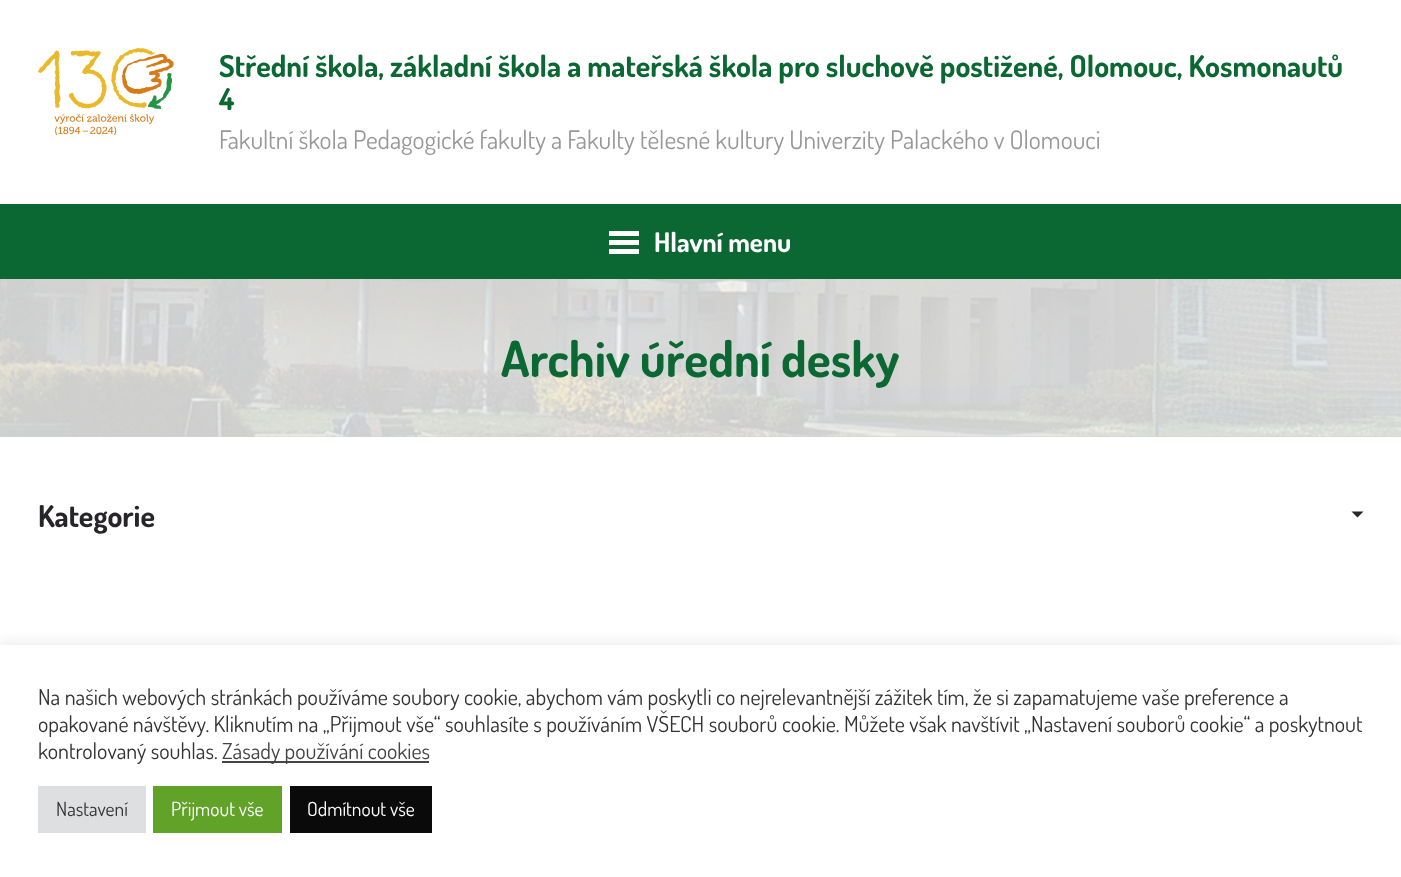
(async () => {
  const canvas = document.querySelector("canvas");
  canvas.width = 1401;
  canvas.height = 877;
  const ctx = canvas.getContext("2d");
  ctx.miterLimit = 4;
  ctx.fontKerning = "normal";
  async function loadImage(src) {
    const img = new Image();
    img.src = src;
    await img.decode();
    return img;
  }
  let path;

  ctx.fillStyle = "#ffffff";
  ctx.fillRect(0, 0, 1401, 877);
  ctx.drawImage(await loadImage("img/1.png"), 38, 48, 136, 87);
  for (const [x, y, w, h, color] of [
    [0, 204, 1401, 75, "#0b6833"],
    [609, 231, 30, 5, "#ffffff"],
    [609, 240, 30, 5, "#ffffff"],
    [609, 249, 30, 5, "#ffffff"],
    [0, 436, 1401, 1, "#d2d2d2"],
  ]) {
    ctx.fillStyle = color;
    ctx.fillRect(x, y, w, h);
  }
  ctx.drawImage(await loadImage("img/2.png"), 0, 279, 1401, 158);
  ctx.fillStyle = "#272529";
  path = new Path2D("M1351.5 511.5H1363.5L1357.5 517.5Z");
  ctx.fill(path);
  ctx.fillStyle = "rgba(172, 171, 171, 0.3)";
  ctx.filter = "blur(7.5px)";
  ctx.beginPath();
  ctx.rect(0, 644, 1401, 232);
  ctx.fill();
  ctx.filter = "none";
  for (const [x, y, w, h, color] of [
    [0, 645, 1401, 232, "#ffffff"],
    [222, 761, 207, 2, "#444444"],
    [38, 786, 108, 47, "#dedfe0"],
    [153, 786, 129, 47, "#61a229"],
    [290, 786, 142, 47, "#0a0a0a"],
  ]) {
    ctx.fillStyle = color;
    ctx.fillRect(x, y, w, h);
  }
  ctx.font = "bold 30px Dosis";
  ctx.fillStyle = "#0b6833";
  ctx.fillText("Střední škola, základní škola a mateřská škola pro sluchově postižené, Olomouc, Kosmonautů", 219, 77);
  ctx.fillText("4", 219, 110);
  ctx.font = "25.5px Dosis";
  ctx.fillStyle = "#989898";
  ctx.fillText("Fakultní škola Pedagogické fakulty a Fakulty tělesné kultury Univerzity Palackého v Olomouci", 219, 149);
  ctx.font = "bold 27px Dosis";
  ctx.fillStyle = "#ffffff";
  ctx.fillText("Hlavní menu", 654, 252);
  ctx.font = "bold 49.5px Dosis";
  ctx.fillStyle = "#0b6833";
  ctx.fillText("Archiv úřední desky", 501, 377);
  ctx.font = "bold 30px Dosis";
  ctx.fillStyle = "#272529";
  ctx.fillText("Kategorie", 38, 527);
  ctx.font = "22px Dosis";
  ctx.fillStyle = "#333333";
  for (const [text, x, y] of [
    ["Na našich webových stránkách používáme soubory cookie, abychom vám poskytli co nejrelevantnější zážitek tím, že si zapamatujeme vaše preference a", 38, 705],
    ["opakované návštěvy. Kliknutím na „Přijmout vše“ souhlasíte s používáním VŠECH souborů cookie. Můžete však navštívit „Nastavení souborů cookie“ a poskytnout", 38, 732],
    ["kontrolovaný souhlas.", 38, 759],
  ]) {
    ctx.fillText(text, x, y);
  }
  ctx.fillStyle = "#444444";
  ctx.fillText("Zásady používání cookies", 222, 759);
  ctx.font = "19.5px Dosis";
  ctx.fillStyle = "#333333";
  ctx.fillText("Nastavení", 56, 816);
  ctx.fillStyle = "#ffffff";
  ctx.fillText("Přijmout vše", 171, 816);
  ctx.fillText("Odmítnout vše", 307, 816);
})();
